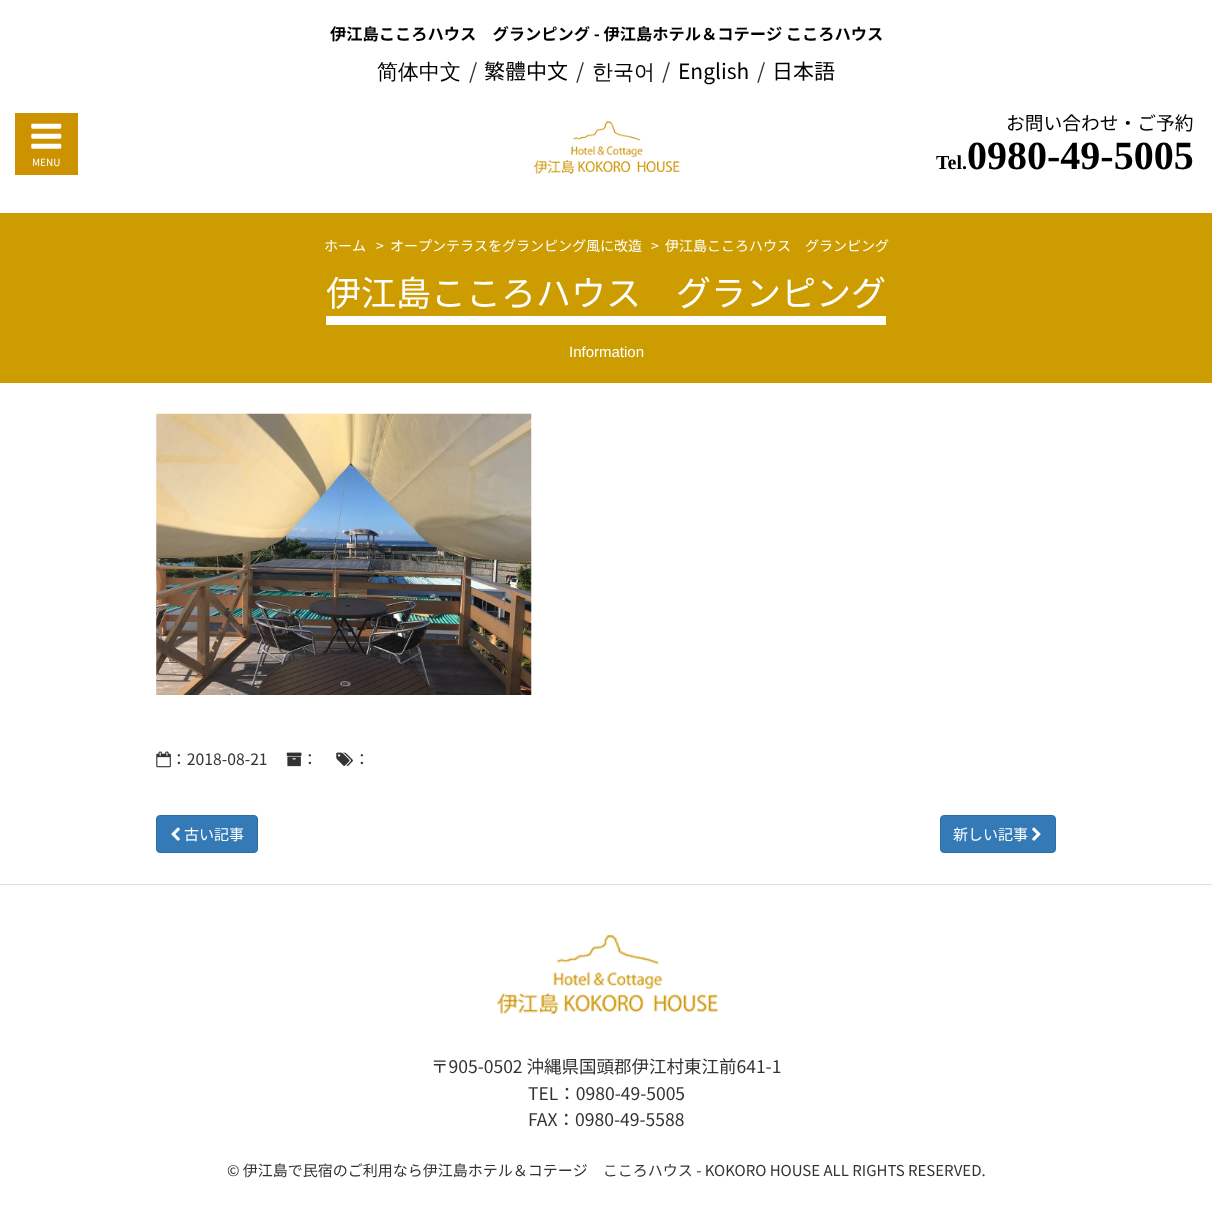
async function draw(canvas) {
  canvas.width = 1212;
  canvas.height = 1207;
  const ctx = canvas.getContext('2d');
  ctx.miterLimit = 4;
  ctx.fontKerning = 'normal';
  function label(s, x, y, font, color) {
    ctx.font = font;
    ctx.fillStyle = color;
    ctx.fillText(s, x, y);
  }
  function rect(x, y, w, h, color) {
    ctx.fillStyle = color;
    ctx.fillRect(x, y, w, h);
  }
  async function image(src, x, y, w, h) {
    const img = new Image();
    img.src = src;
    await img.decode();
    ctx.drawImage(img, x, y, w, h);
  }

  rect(0, 0, 1212, 1207, '#fff');
  label('伊江島こころハウス　グランピング - 伊江島ホテル＆コテージ こころハウス', 330, 40, 'bold 16.25px Noto Sans JP', '#000');
  label('简体中文', 377, 79, '500 21px WenQuanYi Zen Hei', '#000');
  label('/', 469, 79, '21px Noto Sans JP', '#333');
  label('繁體中文', 484, 79, '21px Noto Sans JP', '#000');
  label('/', 576, 79, '21px Noto Sans JP', '#333');
  label('한국어', 592, 79, '500 21px WenQuanYi Zen Hei', '#000');
  label('/', 662, 79, '21px Noto Sans JP', '#333');
  label('English', 678, 79, '21px Noto Sans JP', '#000');
  label('/', 757, 79, '21px Noto Sans JP', '#333');
  label('日本語', 772, 79, '21px Noto Sans JP', '#000');
  rect(15, 113, 63, 62, '#cc9200');
  await image('assets/img1.png', 31, 123, 31, 26);
  label('MENU', 32, 166, '10px Noto Sans JP', '#fff');
  await image('assets/img2.png', 534, 121, 146, 53);
  label('お問い合わせ・ご予約', 1006, 130, '18.75px Noto Sans JP', '#000');
  label('Tel.', 936, 169, 'bold 20px Liberation Serif', '#000');
  label('0980-49-5005', 967, 169, 'bold 40px Liberation Serif', '#000');
  rect(0, 213, 1212, 170, '#cd9c00');
  label('ホーム', 324, 251, '14px Noto Sans JP', '#fff');
  label('>', 376, 251, '14px Noto Sans JP', '#fff');
  label('オープンテラスをグランピング風に改造', 390, 251, '14px Noto Sans JP', '#fff');
  label('>', 651, 251, '14px Noto Sans JP', '#fff');
  label('伊江島こころハウス　グランピング', 665, 251, '14px Noto Sans JP', '#fff');
  label('伊江島こころハウス　グランピング', 326, 306, '35px Noto Sans JP', '#fff');
  rect(326, 316, 560, 9, '#fff');
  label('Information', 569, 357, '15px Liberation Sans', '#fff');
  await image('assets/img3.png', 156, 413, 376, 282);
  await image('assets/img4.png', 156, 751, 15, 17);
  label('：2018-08-21', 171, 765, '15.75px Noto Sans JP', '#333');
  await image('assets/img5.png', 286, 752, 16, 15);
  label('：', 302, 765, '15.75px Noto Sans JP', '#333');
  await image('assets/img6.png', 336, 752, 17, 14);
  label('：', 354, 765, '15.75px Noto Sans JP', '#333');
  ctx.fillStyle = '#337ab7';
  ctx.beginPath();
  ctx.roundRect(156.5, 815.5, 101, 37, 3.5);
  ctx.fill();
  ctx.strokeStyle = '#2e6da4';
  ctx.stroke();
  await image('assets/img7.png', 171, 827, 9, 14);
  label('古い記事', 184, 840, '15px Noto Sans JP', '#fff');
  ctx.fillStyle = '#337ab7';
  ctx.beginPath();
  ctx.roundRect(940.5, 815.5, 115, 37, 3.5);
  ctx.fill();
  ctx.stroke();
  label('新しい記事', 953, 840, '15px Noto Sans JP', '#fff');
  await image('assets/img8.png', 1032, 827, 9, 14);
  rect(0, 884, 1212, 1, '#ddd');
  await image('assets/img9.png', 497, 934, 221, 80);
  label('〒905-0502 沖縄県国頭郡伊江村東江前641-1', 431, 1073, '17.5px Noto Sans JP', '#333');
  label('TEL：0980-49-5005', 528, 1100, '17.5px Noto Sans JP', '#333');
  label('FAX：0980-49-5588', 528, 1126, '17.5px Noto Sans JP', '#333');
  label('© 伊江島で民宿のご利用なら伊江島ホテル＆コテージ　こころハウス - KOKORO HOUSE ALL RIGHTS RESERVED.', 227, 1176, '15px Noto Sans JP', '#333');
}

draw(document.querySelector('canvas'));
